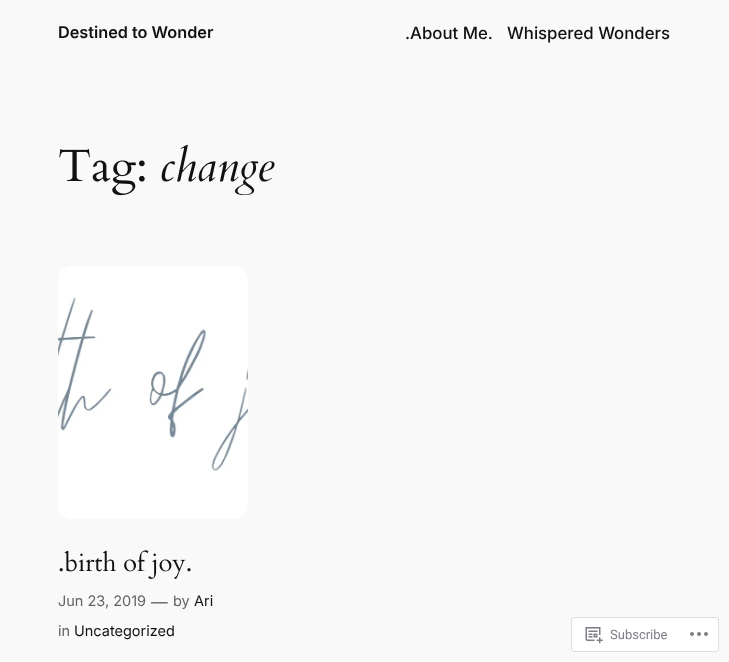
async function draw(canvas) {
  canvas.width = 729;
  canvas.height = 662;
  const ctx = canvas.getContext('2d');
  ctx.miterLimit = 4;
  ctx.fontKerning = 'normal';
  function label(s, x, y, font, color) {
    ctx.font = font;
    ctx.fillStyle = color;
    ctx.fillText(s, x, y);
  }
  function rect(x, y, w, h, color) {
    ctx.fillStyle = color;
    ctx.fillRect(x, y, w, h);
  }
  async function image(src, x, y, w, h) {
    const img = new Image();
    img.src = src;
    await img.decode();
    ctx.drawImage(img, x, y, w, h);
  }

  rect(0, 0, 729, 662, '#f9f9f9');
  label('Destined to Wonder', 58, 38, '600 16.25px Inter', '#111');
  label('.About Me.', 405, 39, '500 16.75px Inter', '#111');
  label('Whispered Wonders', 507, 39, '500 16.75px Inter', '#111');
  await image('assets/img1.png', 59, 149, 86, 47);
  label('change', 160, 181, 'italic 45px Cardo', '#111');
  await image('assets/img2.png', 58, 266, 190, 253);
  await image('assets/img3.png', 59, 550, 132, 29);
  label('Jun 23, 2019', 58, 606, '14.5px Inter', '#636363');
  label('—', 151, 608, '16.75px Inter', '#636363');
  label('by', 173, 606, '14.5px Inter', '#636363');
  label('Ari', 194, 606, '14.5px Inter', '#111');
  label('in', 58, 636, '14.5px Inter', '#636363');
  label('Uncategorized', 74, 636, '14.5px Inter', '#111');
  ctx.fillStyle = '#fff';
  ctx.beginPath();
  ctx.roundRect(571.5, 617.5, 147, 34, 2.5);
  ctx.fill();
  ctx.strokeStyle = '#dddddf';
  ctx.stroke();
  await image('assets/img4.png', 585, 627, 18, 17);
  label('Subscribe', 610, 639, '13px Roboto', '#7b7f84');
  await image('assets/img5.png', 690, 632, 18, 4);
}

draw(document.querySelector('canvas'));
